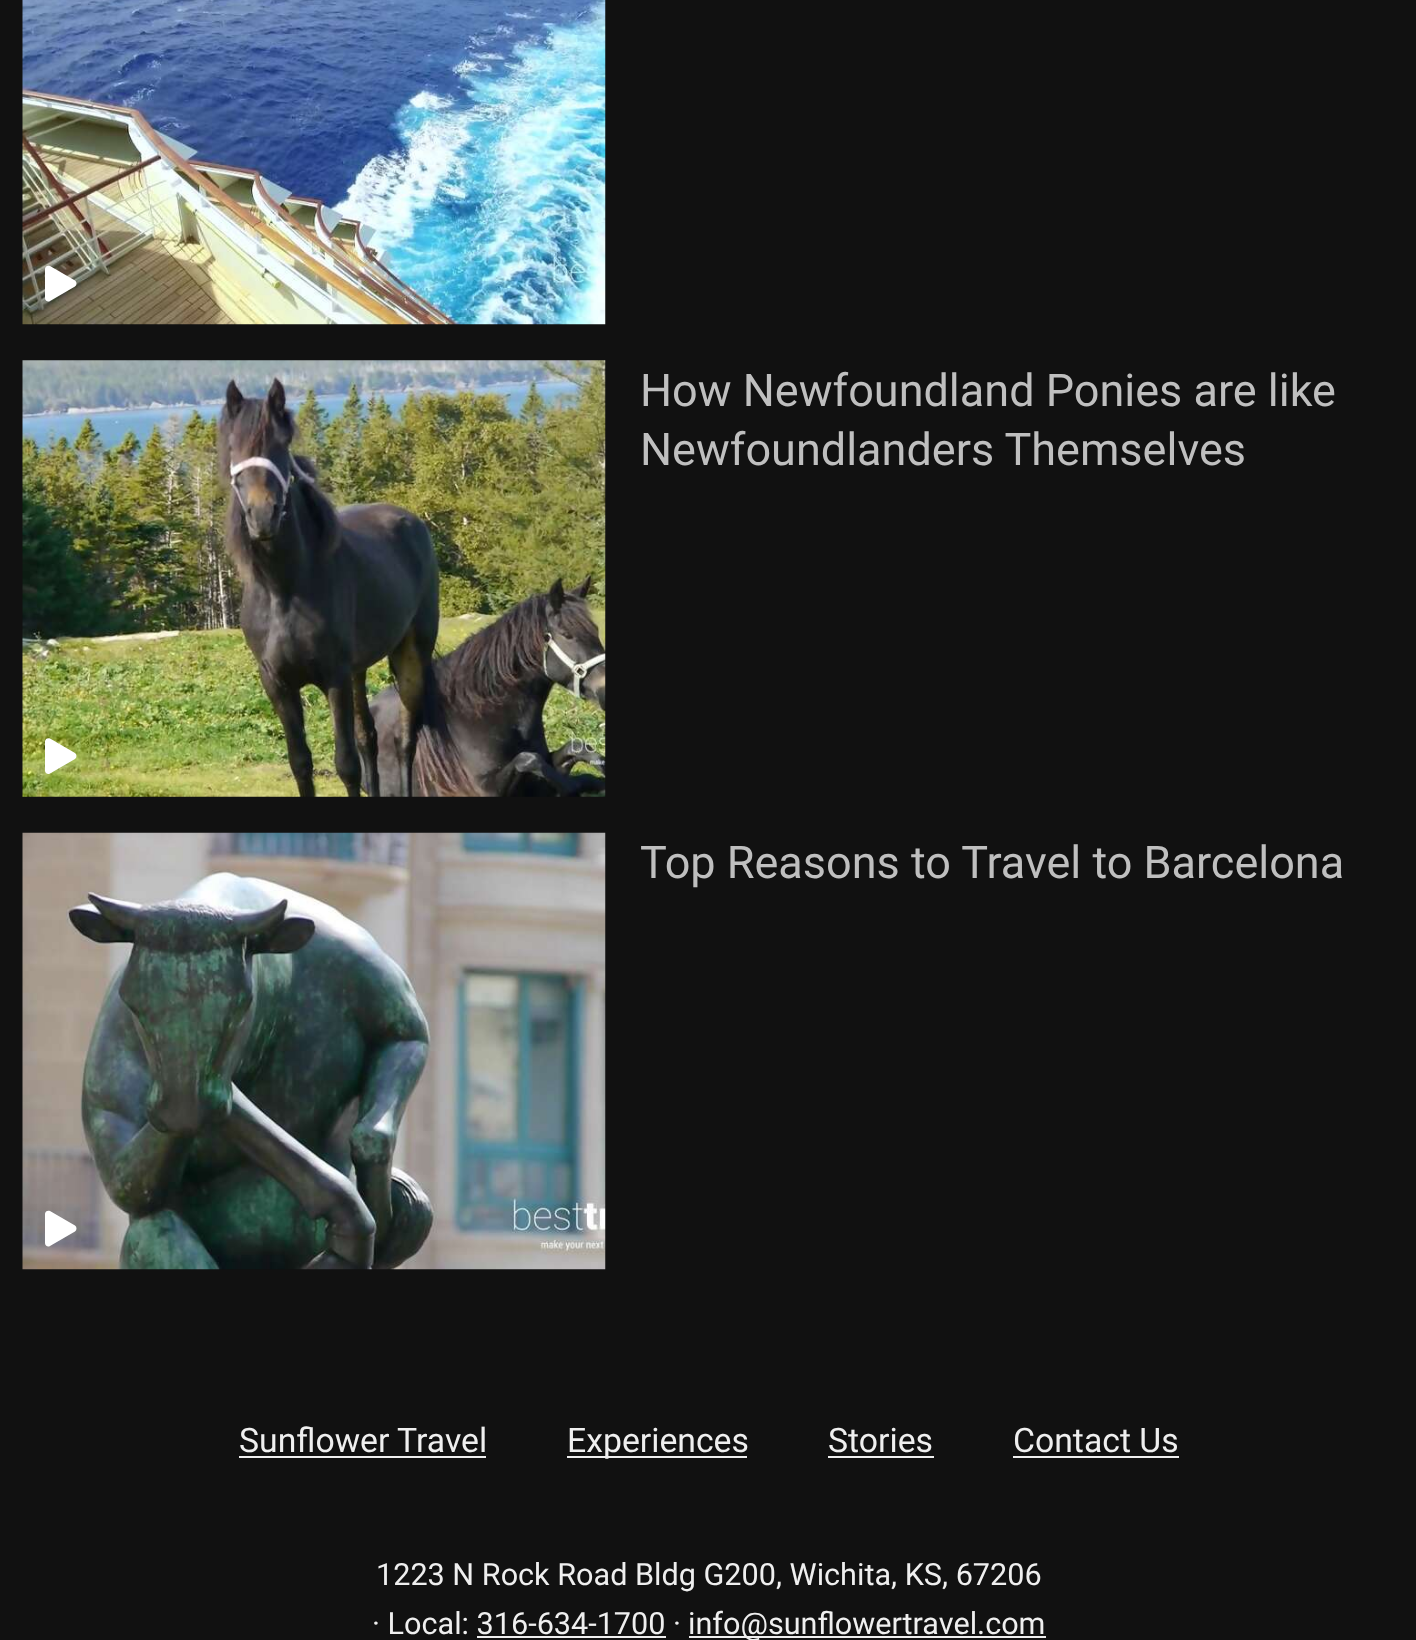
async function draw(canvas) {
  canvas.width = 1416;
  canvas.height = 1640;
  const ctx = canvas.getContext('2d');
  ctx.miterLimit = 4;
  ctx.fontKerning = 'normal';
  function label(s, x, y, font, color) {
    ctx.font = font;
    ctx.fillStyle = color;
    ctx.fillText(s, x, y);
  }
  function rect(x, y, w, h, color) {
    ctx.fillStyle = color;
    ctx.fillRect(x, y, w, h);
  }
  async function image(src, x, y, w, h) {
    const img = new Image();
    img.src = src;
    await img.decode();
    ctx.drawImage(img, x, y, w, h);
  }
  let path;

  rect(0, 0, 1416, 1640, '#111');
  await image('assets/img1.png', 22, 0, 584, 325);
  ctx.fillStyle = '#fff';
  path = new Path2D('M75 280.5L50 266C48 265 45 266 45 269V298C45 301 48 302.5 50 301L75 286.5C77 285 77 282 75 280.5Z');
  ctx.fill(path);
  await image('assets/img2.png', 22, 360, 584, 437);
  path = new Path2D('M75 753L50 738.5C48 737.5 45 738.5 45 741.5V770.5C45 773.5 48 775 50 773.5L75 759C77 757.5 77 754.5 75 753Z');
  ctx.fill(path);
  label('How Newfoundland Ponies are like', 640, 406, '45px Roboto', '#bfbfbf');
  label('Newfoundlanders Themselves', 640, 465, '45px Roboto', '#bfbfbf');
  await image('assets/img3.png', 22, 832, 584, 438);
  ctx.fillStyle = '#fff';
  path = new Path2D('M75 1225.5L50 1211C48 1210 45 1211 45 1214V1243C45 1246 48 1247.5 50 1246L75 1231.5C77 1230 77 1227 75 1225.5Z');
  ctx.fill(path);
  label('Top Reasons to Travel to Barcelona', 640, 878, '45px Roboto', '#bfbfbf');
  label('Sunflower Travel', 239, 1452, '33.75px Roboto', '#efefef');
  rect(239, 1456, 247, 2, '#efefef');
  rect(567, 1456, 180, 2, '#efefef');
  label('Experiences', 567, 1452, '33.75px Roboto', '#efefef');
  label('Stories', 828, 1452, '33.75px Roboto', '#efefef');
  rect(828, 1456, 106, 2, '#efefef');
  label('Contact Us', 1013, 1452, '33.75px Roboto', '#efefef');
  rect(1013, 1456, 166, 2, '#efefef');
  label('1223 N Rock Road Bldg G200, Wichita, KS, 67206', 376, 1585, '30.6px Roboto', '#efefef');
  label('· Local: 316-634-1700 ·', 372, 1634, '30.6px Roboto', '#efefef');
  rect(689, 1636, 357, 2, '#efefef');
  label('info@sunflowertravel.com', 688, 1634, '30.6px Roboto', '#efefef');
  rect(477, 1636, 189, 2, '#efefef');
}

draw(document.querySelector('canvas'));
